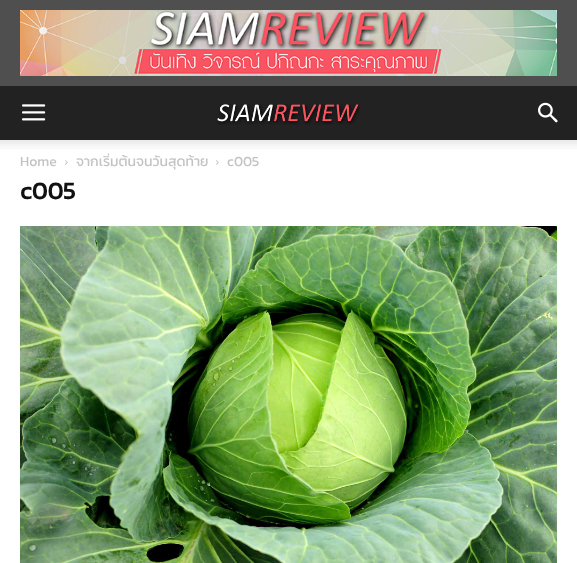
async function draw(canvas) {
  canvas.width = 577;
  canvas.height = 563;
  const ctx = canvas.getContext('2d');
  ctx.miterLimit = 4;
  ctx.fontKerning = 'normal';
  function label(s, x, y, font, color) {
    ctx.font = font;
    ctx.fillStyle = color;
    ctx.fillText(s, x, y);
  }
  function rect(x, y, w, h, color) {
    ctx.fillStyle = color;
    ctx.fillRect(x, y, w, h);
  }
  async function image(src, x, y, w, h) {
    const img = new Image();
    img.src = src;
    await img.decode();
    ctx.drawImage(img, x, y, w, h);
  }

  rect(0, 0, 577, 563, '#fff');
  rect(0, 0, 577, 86, '#4f4f4f');
  await image('assets/img1.png', 20, 10, 537, 66);
  rect(0, 86, 577, 54, '#222');
  await image('assets/img2.png', 22, 104, 24, 17);
  await image('assets/img3.png', 217, 104, 143, 21);
  await image('assets/img4.png', 538, 102, 20, 21);
  await image('assets/img5.png', 0, 140, 577, 9);
  label('Home', 20, 166, '14px Kanit', '#c3c3c3');
  await image('assets/img6.png', 65, 160, 3, 5);
  label('จากเริ่มต้นจนวันสุดท้าย', 76, 166, '14px Kanit', '#c3c3c3');
  await image('assets/img6.png', 216, 160, 3, 5);
  label('c005', 227, 166, '14px Kanit', '#c3c3c3');
  label('c005', 20, 199, 'bold 24px Kanit', '#111');
  await image('assets/img7.png', 20, 226, 537, 337);
}

draw(document.querySelector('canvas'));
